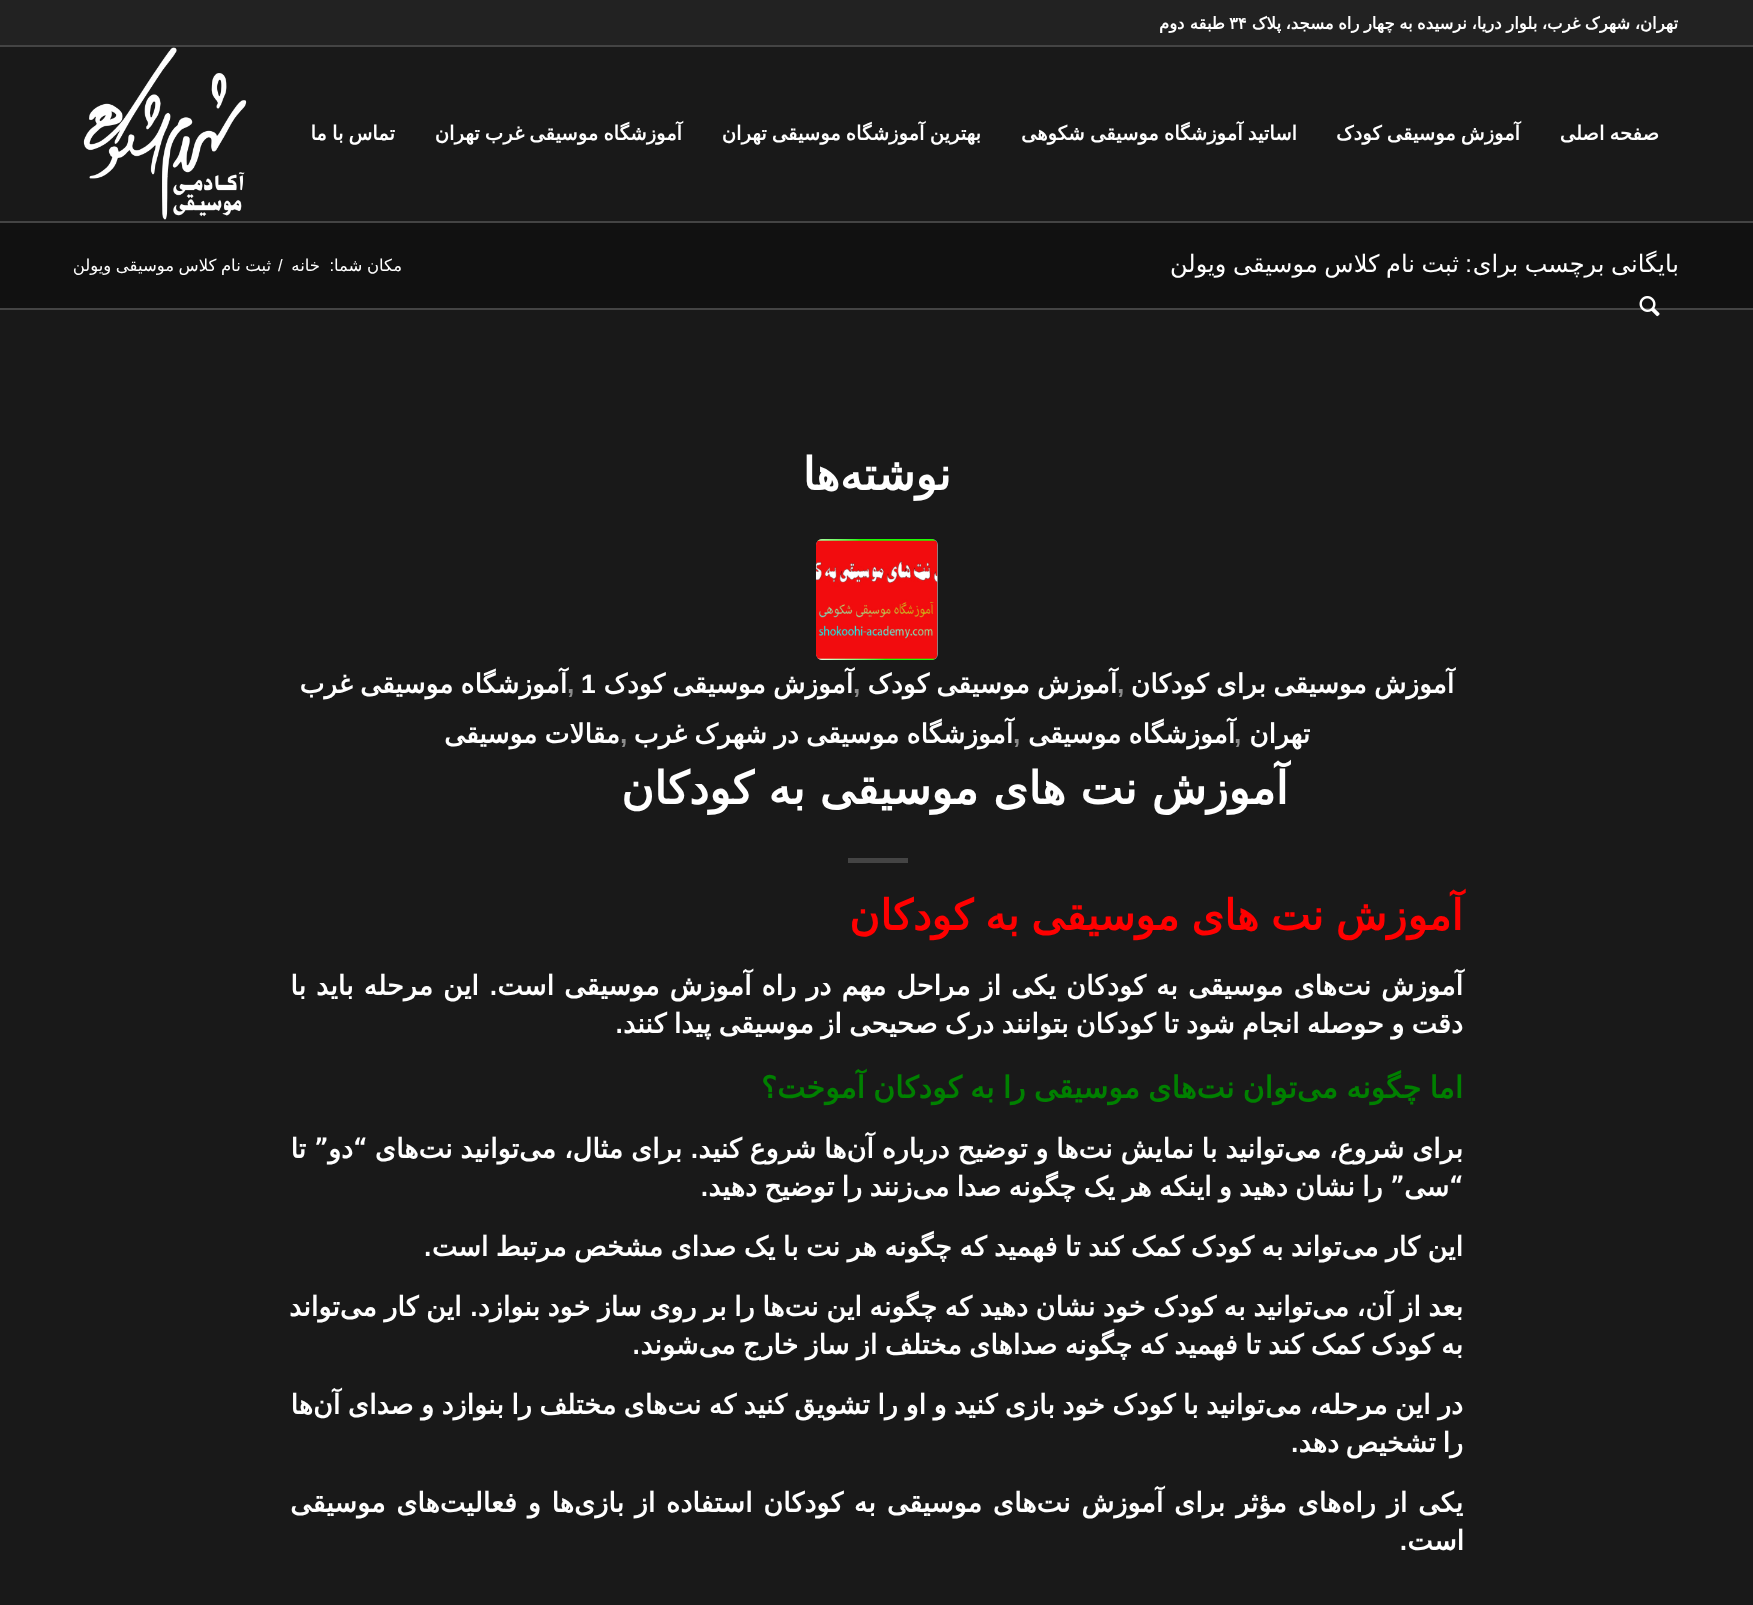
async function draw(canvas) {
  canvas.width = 1753;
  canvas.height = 1605;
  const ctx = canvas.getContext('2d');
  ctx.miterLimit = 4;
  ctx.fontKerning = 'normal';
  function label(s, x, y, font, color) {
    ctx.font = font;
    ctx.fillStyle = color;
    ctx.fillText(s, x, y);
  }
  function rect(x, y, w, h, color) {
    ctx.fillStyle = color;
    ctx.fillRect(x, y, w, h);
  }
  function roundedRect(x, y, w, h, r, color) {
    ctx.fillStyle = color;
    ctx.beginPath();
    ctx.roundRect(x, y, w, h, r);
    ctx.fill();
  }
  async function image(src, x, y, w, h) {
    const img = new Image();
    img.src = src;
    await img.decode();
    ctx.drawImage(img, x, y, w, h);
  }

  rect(0, 0, 1753, 1605, '#191919');
  rect(0, 0, 1753, 45, '#222');
  rect(0, 45, 1753, 2, '#444');
  ctx.wordSpacing = '-0.75px';
  ctx.direction = 'rtl';
  label('تهران، شهرک غرب، بلوار دریا، نرسیده به چهار راه مسجد، پلاک', 1678, 29, 'bold 16.5px DejaVu Sans', '#fff');
  ctx.wordSpacing = '0px';
  ctx.direction = 'ltr';
  label('۳۴', 1229, 29, 'bold 16.5px DejaVu Sans', '#fff');
  ctx.direction = 'rtl';
  label('طبقه دوم', 1225, 29, 'bold 16.5px DejaVu Sans', '#fff');
  rect(0, 221, 1753, 2, '#444');
  ctx.wordSpacing = '-1px';
  label('صفحه اصلی', 1659, 140, 'bold 19.5px DejaVu Sans', '#fff');
  label('آموزش موسیقی کودک', 1520, 140, 'bold 19.5px DejaVu Sans', '#fff');
  label('اساتید آموزشگاه موسیقی شکوهی', 1297, 140, 'bold 19.5px DejaVu Sans', '#fff');
  label('بهترین آموزشگاه موسیقی تهران', 981, 140, 'bold 19.5px DejaVu Sans', '#fff');
  label('آموزشگاه موسیقی غرب تهران', 682, 140, 'bold 19.5px DejaVu Sans', '#fff');
  label('تماس با ما', 395, 140, 'bold 19.5px DejaVu Sans', '#fff');
  rect(0, 223, 1753, 85, '#111');
  rect(0, 308, 1753, 2, '#444');
  await image('assets/img1.png', 1639, 296, 21, 21);
  await image('assets/img2.png', 83, 47, 164, 173);
  label('بایگانی برچسب برای', 1679, 272, '24px DejaVu Sans', '#fff');
  ctx.wordSpacing = '0px';
  label(':', 1472, 272, '24px Liberation Sans', '#fff');
  ctx.wordSpacing = '-1px';
  label('ثبت نام کلاس موسیقی ویولن', 1459, 272, '24px DejaVu Sans', '#fff');
  ctx.wordSpacing = '-0.75px';
  label('مکان شما', 402, 271, '16.5px DejaVu Sans', '#fff');
  ctx.wordSpacing = '0px';
  label(':', 334, 271, '16.5px Liberation Sans', '#fff');
  label('خانه', 320, 271, '16.5px DejaVu Sans', '#fff');
  ctx.direction = 'ltr';
  label('/', 278, 271, '16.5px Liberation Sans', '#fff');
  ctx.wordSpacing = '-0.75px';
  ctx.direction = 'rtl';
  label('ثبت نام کلاس موسیقی ویولن', 271, 271, '16.5px DejaVu Sans', '#fff');
  ctx.wordSpacing = '0px';
  label('نوشته‌ها', 951, 490, 'bold 45px DejaVu Sans', '#fff');
  roundedRect(816, 539, 122, 121, 6, '#8c8c8c');
  await image('assets/img3.png', 816, 539, 122, 121);
  ctx.wordSpacing = '-1px';
  label('آموزش موسیقی برای کودکان', 1454, 693, 'bold 26.4px DejaVu Sans', '#fff');
  ctx.wordSpacing = '0px';
  ctx.direction = 'ltr';
  label(',', 1117, 693, 'bold 26.4px Liberation Sans', '#8c8c8c');
  ctx.wordSpacing = '-1px';
  ctx.direction = 'rtl';
  label('آموزش موسیقی کودک', 1117, 693, 'bold 26.4px DejaVu Sans', '#fff');
  ctx.wordSpacing = '0px';
  ctx.direction = 'ltr';
  label(',', 853, 693, 'bold 26.4px Liberation Sans', '#8c8c8c');
  ctx.wordSpacing = '-1px';
  ctx.direction = 'rtl';
  label('آموزش موسیقی کودک', 853, 693, 'bold 26.4px DejaVu Sans', '#fff');
  ctx.wordSpacing = '0px';
  ctx.direction = 'ltr';
  label('1', 581, 693, 'bold 26.4px Liberation Sans', '#fff');
  label(',', 567, 693, 'bold 26.4px Liberation Sans', '#8c8c8c');
  ctx.wordSpacing = '-1px';
  ctx.direction = 'rtl';
  label('آموزشگاه موسيقى غرب', 567, 693, 'bold 26.4px DejaVu Sans', '#fff');
  ctx.wordSpacing = '0px';
  label('تهران', 1310, 743, 'bold 26.4px DejaVu Sans', '#fff');
  ctx.direction = 'ltr';
  label(',', 1234, 743, 'bold 26.4px Liberation Sans', '#8c8c8c');
  ctx.wordSpacing = '-1px';
  ctx.direction = 'rtl';
  label('آموزشگاه موسیقی', 1235, 743, 'bold 26.4px DejaVu Sans', '#fff');
  ctx.wordSpacing = '0px';
  ctx.direction = 'ltr';
  label(',', 1013, 743, 'bold 26.4px Liberation Sans', '#8c8c8c');
  ctx.wordSpacing = '-1px';
  ctx.direction = 'rtl';
  label('آموزشگاه موسیقی در شهرک غرب', 1013, 743, 'bold 26.4px DejaVu Sans', '#fff');
  ctx.wordSpacing = '0px';
  ctx.direction = 'ltr';
  label(',', 620, 743, 'bold 26.4px Liberation Sans', '#8c8c8c');
  ctx.wordSpacing = '-1px';
  ctx.direction = 'rtl';
  label('مقالات موسیقی', 620, 743, 'bold 26.4px DejaVu Sans', '#fff');
  ctx.letterSpacing = '3px';
  ctx.wordSpacing = '-2.75px';
  label('آموزش نت های موسیقی به کودکان', 1288, 804, 'bold 45px DejaVu Sans', '#fff');
  rect(848, 858, 60, 5, '#444');
  ctx.letterSpacing = '0px';
  ctx.wordSpacing = '-1.5px';
  label('آموزش نت های موسیقی به کودکان', 1463, 930, 'bold 42px DejaVu Sans', '#f00');
  ctx.wordSpacing = '1.5px';
  label('آموزش نت‌های موسیقی به کودکان یکی از مراحل مهم در راه آموزش موسیقی است. این مرحله باید با', 1463, 995, 'bold 27px DejaVu Sans', '#fff');
  ctx.wordSpacing = '-1.2px';
  label('دقت و حوصله انجام شود تا کودکان بتوانند درک صحیحی از موسیقی پیدا کنند.', 1463, 1033, 'bold 27px DejaVu Sans', '#fff');
  ctx.wordSpacing = '-1.25px';
  label('اما چگونه می‌توان نت‌های موسیقی را به کودکان آموخت؟', 1463, 1098, 'bold 30px DejaVu Sans', '#008000');
  ctx.wordSpacing = '-0.75px';
  label('برای شروع، می‌توانید با نمایش نت‌ها و توضیح درباره آن‌ها شروع کنید. برای مثال، می‌توانید نت‌های “دو” تا', 1463, 1158, 'bold 27px DejaVu Sans', '#fff');
  ctx.wordSpacing = '-1.25px';
  label('“سی” را نشان دهید و اینکه هر یک چگونه صدا می‌زنند را توضیح دهید.', 1463, 1196, 'bold 27px DejaVu Sans', '#fff');
  ctx.wordSpacing = '-1.1px';
  label('این کار می‌تواند به کودک کمک کند تا فهمید که چگونه هر نت با یک صدای مشخص مرتبط است.', 1463, 1256, 'bold 27px DejaVu Sans', '#fff');
  ctx.wordSpacing = '-1px';
  label('بعد از آن، می‌توانید به کودک خود نشان دهید که چگونه این نت‌ها را بر روی ساز خود بنوازد. این کار می‌تواند', 1463, 1316, 'bold 27px DejaVu Sans', '#fff');
  ctx.wordSpacing = '-1.2px';
  label('به کودک کمک کند تا فهمید که چگونه صداهای مختلف از ساز خارج می‌شوند.', 1463, 1354, 'bold 27px DejaVu Sans', '#fff');
  ctx.wordSpacing = '-1.1px';
  label('در این مرحله، می‌توانید با کودک خود بازی کنید و او را تشویق کنید که نت‌های مختلف را بنوازد و صدای آن‌ها', 1463, 1414, 'bold 27px DejaVu Sans', '#fff');
  ctx.wordSpacing = '-2px';
  label('را تشخیص دهد.', 1463, 1452, 'bold 27px DejaVu Sans', '#fff');
  ctx.wordSpacing = '2.25px';
  label('یکی از راه‌های مؤثر برای آموزش نت‌های موسیقی به کودکان استفاده از بازی‌ها و فعالیت‌های موسیقی', 1463, 1512, 'bold 27px DejaVu Sans', '#fff');
  ctx.wordSpacing = '0px';
  label('است.', 1464, 1550, 'bold 27px DejaVu Sans', '#fff');
}

draw(document.querySelector('canvas'));
